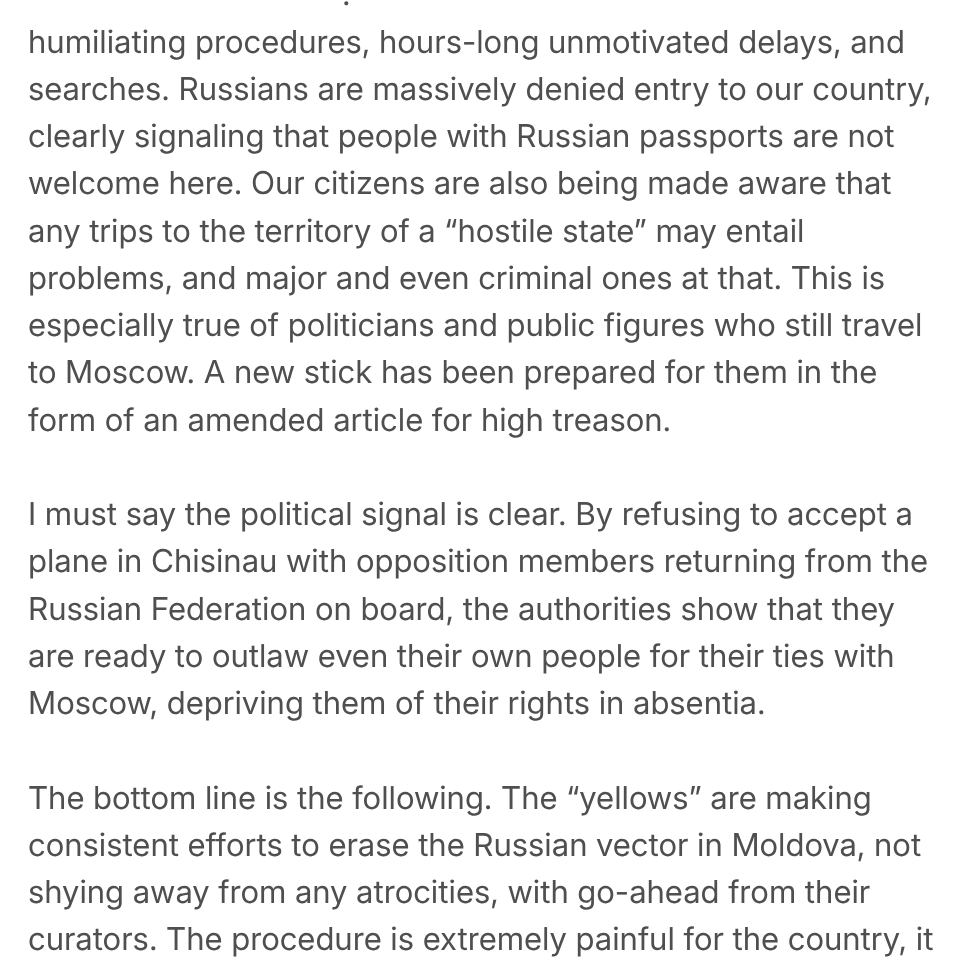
async function draw(canvas) {
  canvas.width = 961;
  canvas.height = 974;
  const ctx = canvas.getContext('2d');
  ctx.miterLimit = 4;
  ctx.fontKerning = 'normal';
  function label(s, x, y, font, color) {
    ctx.font = font;
    ctx.fillStyle = color;
    ctx.fillText(s, x, y);
  }
  function rect(x, y, w, h, color) {
    ctx.fillStyle = color;
    ctx.fillRect(x, y, w, h);
  }

  rect(0, 0, 961, 974, '#fff');
  label('.', 342, 5, '31.5px Inter', '#4f4f4f');
  label('humiliating procedures, hours-long unmotivated delays, and', 28, 53, '31.5px Inter', '#4f4f4f');
  label('searches. Russians are massively denied entry to our country,', 28, 100, '31.5px Inter', '#4f4f4f');
  label('clearly signaling that people with Russian passports are not', 28, 147, '31.5px Inter', '#4f4f4f');
  label('welcome here. Our citizens are also being made aware that', 28, 194, '31.5px Inter', '#4f4f4f');
  label('any trips to the territory of a “hostile state” may entail', 28, 242, '31.5px Inter', '#4f4f4f');
  label('problems, and major and even criminal ones at that. This is', 28, 289, '31.5px Inter', '#4f4f4f');
  label('especially true of politicians and public figures who still travel', 28, 336, '31.5px Inter', '#4f4f4f');
  label('to Moscow. A new stick has been prepared for them in the', 28, 383, '31.5px Inter', '#4f4f4f');
  label('form of an amended article for high treason.', 28, 431, '31.5px Inter', '#4f4f4f');
  label('I must say the political signal is clear. By refusing to accept a', 28, 525, '31.5px Inter', '#4f4f4f');
  label('plane in Chisinau with opposition members returning from the', 28, 572, '31.5px Inter', '#4f4f4f');
  label('Russian Federation on board, the authorities show that they', 28, 620, '31.5px Inter', '#4f4f4f');
  label('are ready to outlaw even their own people for their ties with', 28, 667, '31.5px Inter', '#4f4f4f');
  label('Moscow, depriving them of their rights in absentia.', 28, 714, '31.5px Inter', '#4f4f4f');
  label('The bottom line is the following. The “yellows” are making', 28, 809, '31.5px Inter', '#4f4f4f');
  label('consistent efforts to erase the Russian vector in Moldova, not', 28, 856, '31.5px Inter', '#4f4f4f');
  label('shying away from any atrocities, with go-ahead from their', 28, 903, '31.5px Inter', '#4f4f4f');
  label('curators. The procedure is extremely painful for the country, it', 28, 950, '31.5px Inter', '#4f4f4f');
}

draw(document.querySelector('canvas'));
